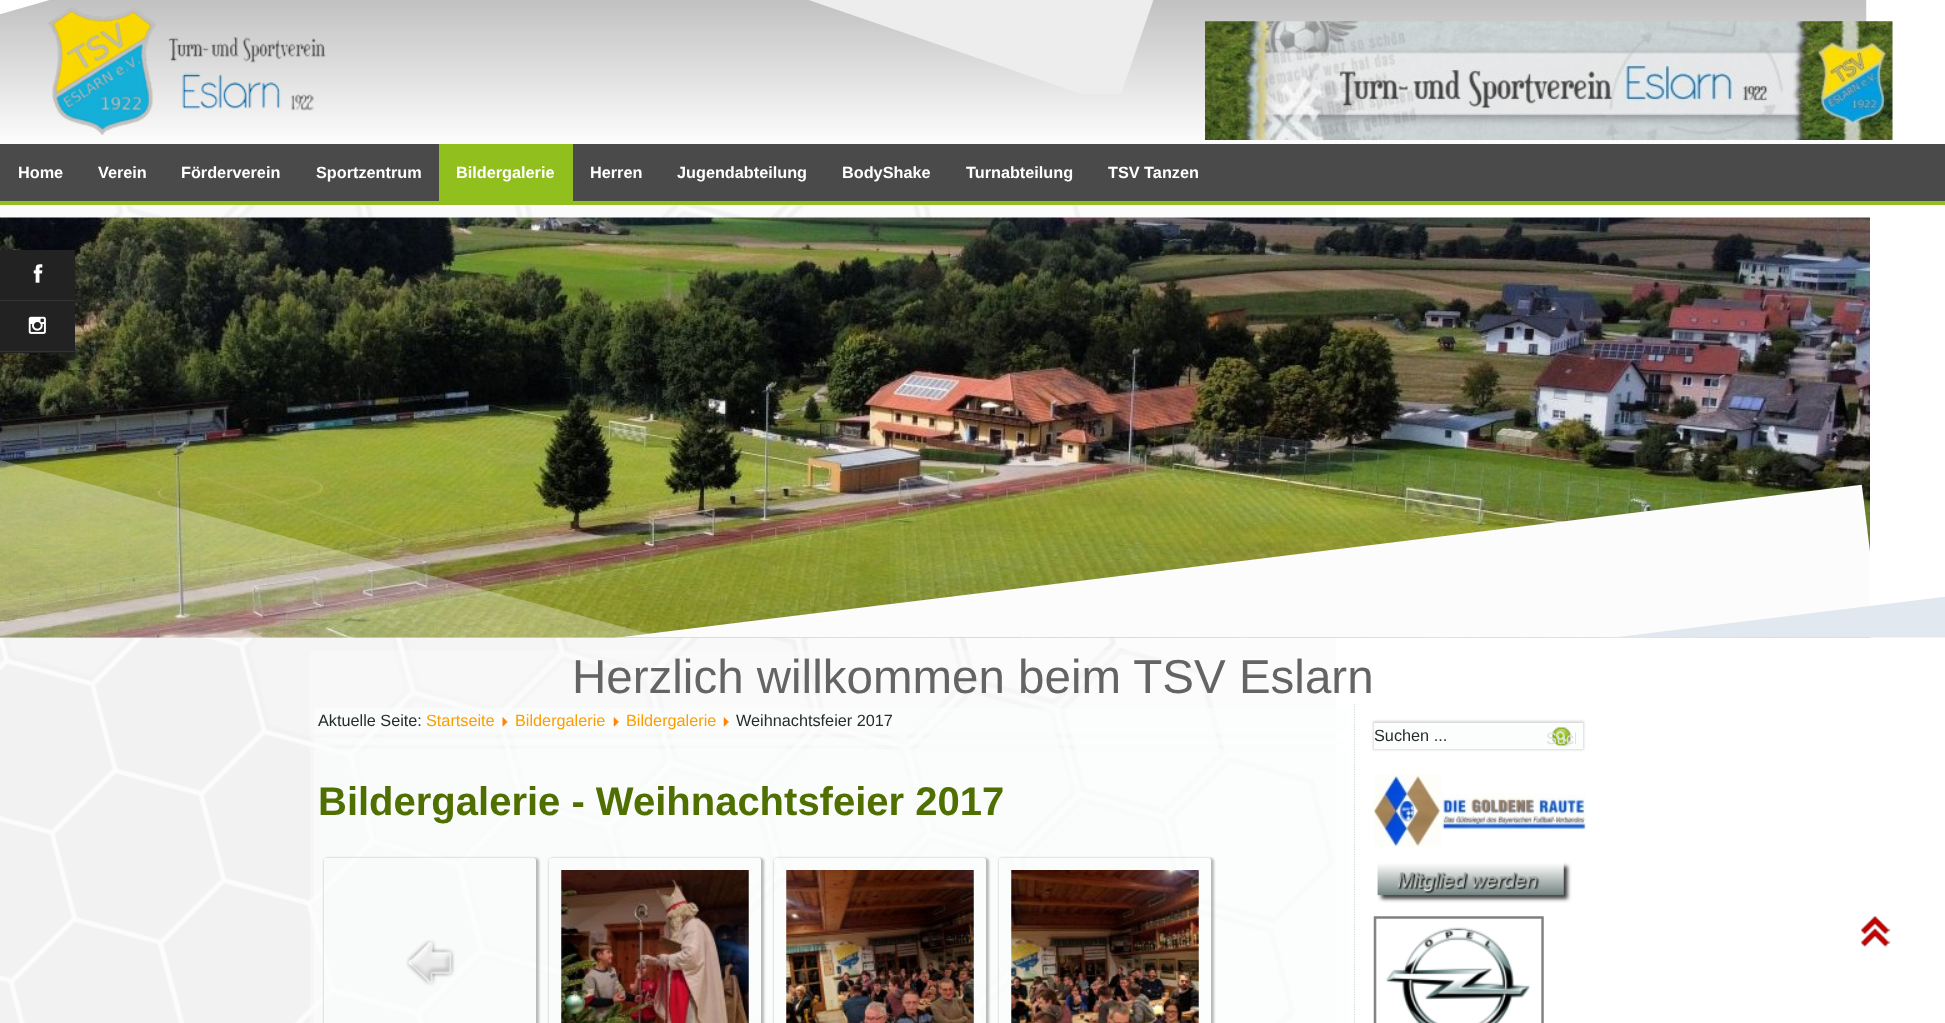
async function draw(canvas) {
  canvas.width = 1945;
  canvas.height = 1023;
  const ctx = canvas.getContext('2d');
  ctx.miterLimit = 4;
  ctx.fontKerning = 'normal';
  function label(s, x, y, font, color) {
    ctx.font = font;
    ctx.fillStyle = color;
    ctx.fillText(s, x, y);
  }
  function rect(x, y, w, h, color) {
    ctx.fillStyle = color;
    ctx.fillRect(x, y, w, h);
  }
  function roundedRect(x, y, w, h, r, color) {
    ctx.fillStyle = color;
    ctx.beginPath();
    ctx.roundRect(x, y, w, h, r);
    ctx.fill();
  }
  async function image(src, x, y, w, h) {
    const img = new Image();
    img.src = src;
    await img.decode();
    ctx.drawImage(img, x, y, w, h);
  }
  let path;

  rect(0, 0, 1945, 1023, '#fff');
  await image('assets/img1.png', 0, 205, 1336, 818);
  await image('assets/img2.png', 0, 0, 1867, 144);
  await image('assets/img3.png', 0, 0, 49, 15);
  await image('assets/img4.png', 809, 0, 345, 94);
  await image('assets/img5.png', 0, 217, 1870, 421);
  await image('assets/img7.png', 614, 484, 1256, 154);
  await image('assets/img6.png', 0, 460, 663, 178);
  await image('assets/img8.png', 1611, 596, 334, 42);
  await image('assets/img9.png', 48, 7, 278, 128);
  await image('assets/img10.png', 1205, 21, 688, 119);
  rect(0, 144, 1945, 57, '#4a4a4a');
  rect(0, 201, 1945, 4, '#91bf1d');
  label('Home', 18, 178, 'bold 16.25px Liberation Sans', '#fff');
  label('Verein', 98, 178, 'bold 16.25px Liberation Sans', '#fff');
  label('Förderverein', 181, 178, 'bold 16.25px Liberation Sans', '#fff');
  label('Sportzentrum', 316, 178, 'bold 16.25px Liberation Sans', '#fff');
  rect(439, 144, 134, 57, '#91bf1d');
  label('Bildergalerie', 456, 178, 'bold 16.25px Liberation Sans', '#fff');
  label('Herren', 590, 178, 'bold 16.25px Liberation Sans', '#fff');
  label('Jugendabteilung', 677, 178, 'bold 16.25px Liberation Sans', '#fff');
  label('BodyShake', 842, 178, 'bold 16.25px Liberation Sans', '#fff');
  label('Turnabteilung', 966, 178, 'bold 16.25px Liberation Sans', '#fff');
  label('TSV Tanzen', 1108, 178, 'bold 16.25px Liberation Sans', '#fff');
  rect(0, 250, 75, 50, '#222');
  rect(0, 300, 75, 1, '#333');
  await image('assets/img11.png', 33, 264, 10, 19);
  rect(0, 301, 75, 52, '#222');
  rect(0, 351, 75, 1, '#333');
  await image('assets/img12.png', 28, 316, 18, 18);
  rect(310, 650, 1025, 373, '#fcfdfd66');
  label('Herzlich willkommen beim TSV Eslarn', 572, 693, '47.5px Liberation Sans', '#646464');
  roundedRect(314, 708, 1036, 26, 2.5, '#fcfdfd99');
  label('Aktuelle Seite:', 318, 726, '16.25px Liberation Sans', '#252c2c');
  label('Startseite', 426, 726, '16.25px Liberation Sans', '#fa9e00');
  await image('assets/img13.png', 502, 717, 6, 10);
  label('Bildergalerie', 515, 726, '16.25px Liberation Sans', '#fa9e00');
  await image('assets/img14.png', 613, 717, 6, 10);
  label('Bildergalerie', 626, 726, '16.25px Liberation Sans', '#fa9e00');
  await image('assets/img15.png', 723, 717, 6, 10);
  label('Weihnachtsfeier 2017', 736, 726, '16.25px Liberation Sans', '#252c2c');
  roundedRect(314, 738, 1036, 7, 2.5, '#fcfdfd99');
  roundedRect(314, 749, 1036, 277, 2.5, '#fcfdfd99');
  label('Bildergalerie - Weihnachtsfeier 2017', 318, 815, 'bold 40px Liberation Sans', '#506f01');
  ctx.save();
  path = new Path2D('M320 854H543V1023H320ZM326.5 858H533.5C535 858 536 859 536 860.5V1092.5C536 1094 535 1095 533.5 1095H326.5C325 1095 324 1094 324 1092.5V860.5C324 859 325 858 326.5 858Z');
  ctx.clip(path, 'evenodd');
  ctx.fillStyle = '#78787880';
  ctx.filter = 'blur(1px)';
  ctx.beginPath();
  ctx.roundRect(324, 858, 215, 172, 4);
  ctx.fill();
  ctx.filter = 'none';
  ctx.restore();
  await image('assets/img16.png', 406, 940, 49, 46);
  ctx.save();
  path = new Path2D('M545 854H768V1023H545ZM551.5 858H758.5C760 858 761 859 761 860.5V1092.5C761 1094 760 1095 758.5 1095H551.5C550 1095 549 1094 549 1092.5V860.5C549 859 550 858 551.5 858Z');
  ctx.clip(path, 'evenodd');
  ctx.fillStyle = '#78787880';
  ctx.filter = 'blur(1px)';
  ctx.beginPath();
  ctx.roundRect(549, 858, 215, 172, 4);
  ctx.fill();
  ctx.filter = 'none';
  ctx.restore();
  await image('assets/img17.png', 561, 870, 188, 153);
  ctx.save();
  path = new Path2D('M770 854H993V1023H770ZM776.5 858H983.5C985 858 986 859 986 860.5V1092.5C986 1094 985 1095 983.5 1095H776.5C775 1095 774 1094 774 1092.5V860.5C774 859 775 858 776.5 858Z');
  ctx.clip(path, 'evenodd');
  ctx.fillStyle = '#78787880';
  ctx.filter = 'blur(1px)';
  ctx.beginPath();
  ctx.roundRect(774, 858, 215, 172, 4);
  ctx.fill();
  ctx.filter = 'none';
  ctx.restore();
  await image('assets/img18.png', 786, 870, 188, 153);
  ctx.save();
  path = new Path2D('M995 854H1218V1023H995ZM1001.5 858H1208.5C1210 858 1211 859 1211 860.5V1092.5C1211 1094 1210 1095 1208.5 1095H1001.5C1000 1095 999 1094 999 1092.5V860.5C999 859 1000 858 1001.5 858Z');
  ctx.clip(path, 'evenodd');
  ctx.fillStyle = '#78787880';
  ctx.filter = 'blur(1px)';
  ctx.beginPath();
  ctx.roundRect(999, 858, 215, 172, 4);
  ctx.fill();
  ctx.filter = 'none';
  ctx.restore();
  await image('assets/img19.png', 1011, 870, 188, 153);
  path = new Path2D('M1354.5 704V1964');
  ctx.strokeStyle = '#d3dada';
  ctx.lineWidth = 1.2;
  ctx.setLineDash([1.25, 1.25]);
  ctx.stroke(path);
  ctx.fillStyle = '#00000026';
  ctx.filter = 'blur(1px)';
  ctx.beginPath();
  ctx.rect(1373, 721, 211, 29);
  ctx.fill();
  ctx.filter = 'none';
  rect(1374, 723, 209, 26, '#fcfdfd');
  label('Suchen ...', 1374, 741, '16.25px Liberation Sans', '#252c2c');
  await image('assets/img20.png', 1552, 727, 20, 20);
  ctx.save();
  ctx.beginPath();
  ctx.rect(1546, 723, 30, 26);
  ctx.clip();
  label('Such', 1546, 744, '16.25px Liberation Sans', '#dbe1e1');
  ctx.restore();
  await image('assets/img21.png', 1373, 774, 213, 73);
  await image('assets/img22.png', 1377, 862, 195, 41);
  await image('assets/img23.png', 1373, 916, 171, 107);
  await image('assets/img24.png', 1861, 916, 30, 31);
}

draw(document.querySelector('canvas'));
